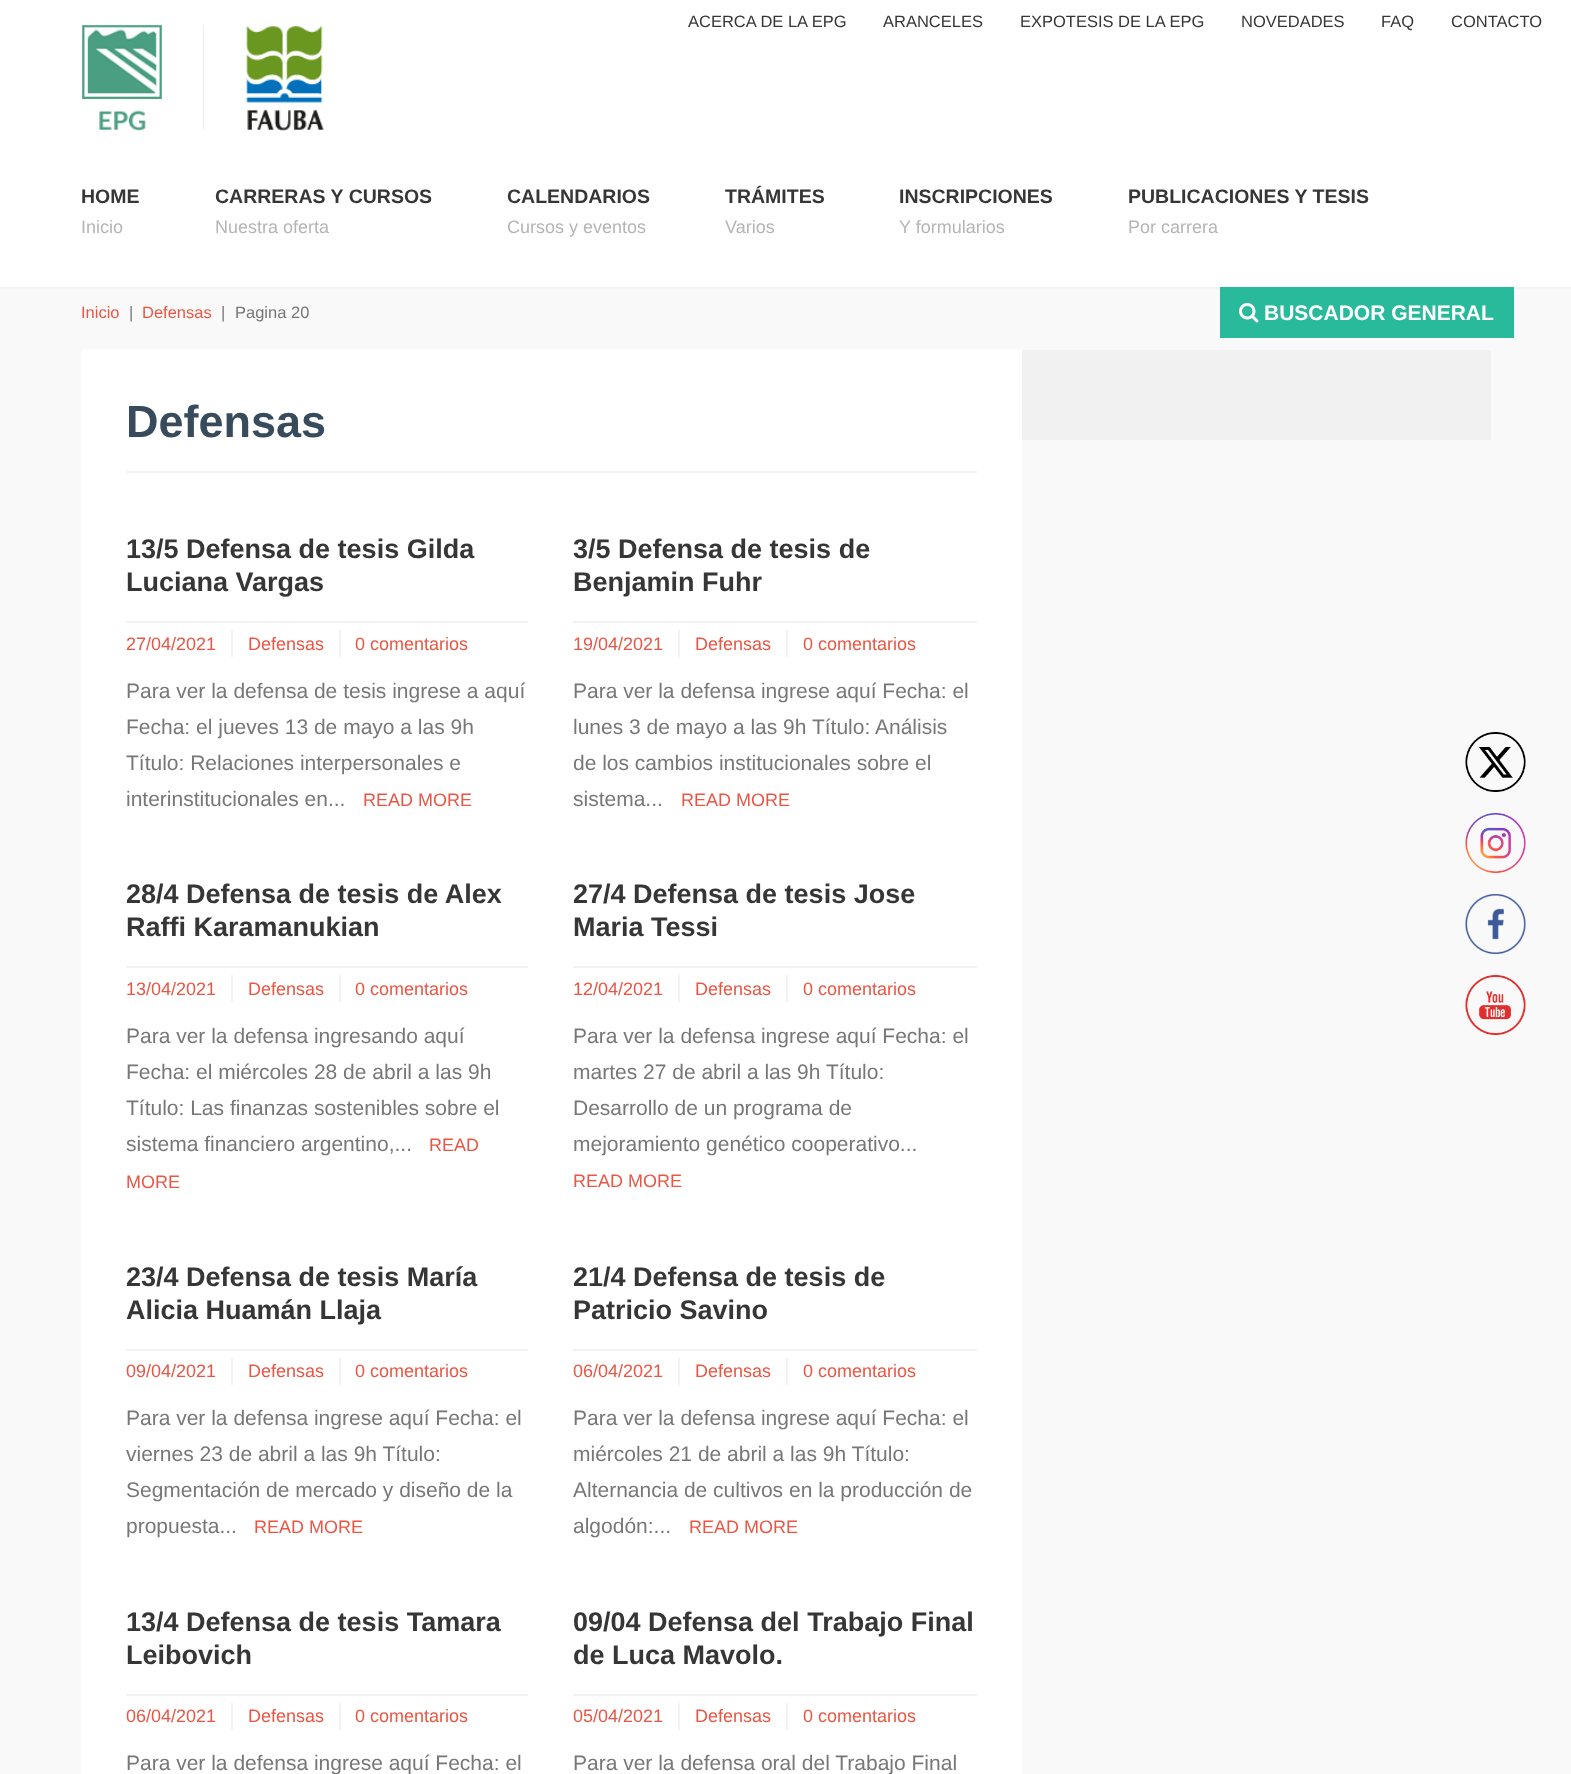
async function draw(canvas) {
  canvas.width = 1571;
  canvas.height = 1774;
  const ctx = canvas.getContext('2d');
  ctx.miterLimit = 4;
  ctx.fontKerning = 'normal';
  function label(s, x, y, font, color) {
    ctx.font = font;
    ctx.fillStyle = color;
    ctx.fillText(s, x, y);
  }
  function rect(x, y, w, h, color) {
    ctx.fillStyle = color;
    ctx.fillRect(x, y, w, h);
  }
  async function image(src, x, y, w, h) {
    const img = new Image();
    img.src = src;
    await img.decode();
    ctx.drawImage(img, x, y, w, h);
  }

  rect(0, 0, 1571, 1774, '#fff');
  label('ACERCA DE LA EPG', 688, 27, '16.5px Liberation Sans', '#363636');
  label('ARANCELES', 883, 27, '16.5px Liberation Sans', '#363636');
  label('EXPOTESIS DE LA EPG', 1020, 27, '16.5px Liberation Sans', '#363636');
  label('NOVEDADES', 1241, 27, '16.5px Liberation Sans', '#363636');
  label('FAQ', 1381, 27, '16.5px Liberation Sans', '#363636');
  label('CONTACTO', 1451, 27, '16.5px Liberation Sans', '#363636');
  await image('assets/img1.png', 82, 25, 242, 106);
  label('HOME', 81, 203, 'bold 19.5px Liberation Sans', '#363636');
  label('Inicio', 81, 233, '18px Liberation Sans', '#b5b5b5');
  label('CARRERAS Y CURSOS', 215, 203, 'bold 19.5px Liberation Sans', '#363636');
  label('Nuestra oferta', 215, 233, '18px Liberation Sans', '#b5b5b5');
  label('CALENDARIOS', 507, 203, 'bold 19.5px Liberation Sans', '#363636');
  label('Cursos y eventos', 507, 233, '18px Liberation Sans', '#b5b5b5');
  label('TRÁMITES', 725, 203, 'bold 19.5px Liberation Sans', '#363636');
  label('Varios', 725, 233, '18px Liberation Sans', '#b5b5b5');
  label('INSCRIPCIONES', 899, 203, 'bold 19.5px Liberation Sans', '#363636');
  label('Y formularios', 899, 233, '18px Liberation Sans', '#b5b5b5');
  label('PUBLICACIONES Y TESIS', 1128, 203, 'bold 19.5px Liberation Sans', '#363636');
  label('Por carrera', 1128, 233, '18px Liberation Sans', '#b5b5b5');
  rect(0, 289, 1571, 1485, '#f9f9f9');
  rect(0, 287, 1571, 2, '#f4f4f4');
  label('Inicio', 81, 318, '16.5px Liberation Sans', '#ea5644');
  label('|', 129, 318, '16.5px Liberation Sans', '#777');
  label('Defensas', 142, 318, '16.5px Liberation Sans', '#ea5644');
  label('|', 221, 318, '16.5px Liberation Sans', '#777');
  label('Pagina 20', 235, 318, '16.5px Liberation Sans', '#777');
  rect(1220, 287, 294, 51, '#29ba9c');
  await image('assets/img2.png', 1239, 303, 20, 20);
  label('BUSCADOR GENERAL', 1264, 320, 'bold 21px Liberation Sans', '#fff');
  rect(1022, 350, 469, 90, '#f1f1f1');
  rect(81, 350, 941, 1424, '#fff');
  rect(126, 471, 851, 2, '#f2f2f2');
  label('Defensas', 126, 437, 'bold 45px Liberation Sans', '#374b5d');
  rect(126, 621, 402, 2, '#f2f2f2');
  label('13/5 Defensa de tesis Gilda', 126, 558, 'bold 27px Liberation Sans', '#363636');
  label('Luciana Vargas', 126, 591, 'bold 27px Liberation Sans', '#363636');
  rect(231, 630, 2, 27, '#f2f2f2');
  label('27/04/2021', 126, 650, '18px Liberation Sans', '#ea5644');
  rect(339, 630, 2, 27, '#f2f2f2');
  label('Defensas', 248, 650, '18px Liberation Sans', '#ea5644');
  label('0 comentarios', 355, 650, '18px Liberation Sans', '#ea5644');
  label('Para ver la defensa de tesis ingrese a aquí', 126, 698, '21px Liberation Sans', '#777');
  label('Fecha: el jueves 13 de mayo a las 9h', 126, 734, '21px Liberation Sans', '#777');
  label('Título: Relaciones interpersonales e', 126, 770, '21px Liberation Sans', '#777');
  label('interinstitucionales en...', 126, 806, '21px Liberation Sans', '#777');
  label('READ MORE', 363, 806, '18px Liberation Sans', '#ea5644');
  rect(573, 621, 404, 2, '#f2f2f2');
  label('3/5 Defensa de tesis de', 573, 558, 'bold 27px Liberation Sans', '#363636');
  label('Benjamin Fuhr', 573, 591, 'bold 27px Liberation Sans', '#363636');
  rect(678, 630, 2, 27, '#f2f2f2');
  label('19/04/2021', 573, 650, '18px Liberation Sans', '#ea5644');
  rect(786, 630, 2, 27, '#f2f2f2');
  label('Defensas', 695, 650, '18px Liberation Sans', '#ea5644');
  label('0 comentarios', 803, 650, '18px Liberation Sans', '#ea5644');
  label('Para ver la defensa ingrese aquí Fecha: el', 573, 698, '21px Liberation Sans', '#777');
  label('lunes 3 de mayo a las 9h Título: Análisis', 573, 734, '21px Liberation Sans', '#777');
  label('de los cambios institucionales sobre el', 573, 770, '21px Liberation Sans', '#777');
  label('sistema...', 573, 806, '21px Liberation Sans', '#777');
  label('READ MORE', 681, 806, '18px Liberation Sans', '#ea5644');
  rect(126, 966, 402, 2, '#f2f2f2');
  label('28/4 Defensa de tesis de Alex', 126, 903, 'bold 27px Liberation Sans', '#363636');
  label('Raffi Karamanukian', 126, 936, 'bold 27px Liberation Sans', '#363636');
  rect(231, 975, 2, 27, '#f2f2f2');
  label('13/04/2021', 126, 995, '18px Liberation Sans', '#ea5644');
  rect(339, 975, 2, 27, '#f2f2f2');
  label('Defensas', 248, 995, '18px Liberation Sans', '#ea5644');
  label('0 comentarios', 355, 995, '18px Liberation Sans', '#ea5644');
  label('Para ver la defensa ingresando aquí', 126, 1043, '21px Liberation Sans', '#777');
  label('Fecha: el miércoles 28 de abril a las 9h', 126, 1079, '21px Liberation Sans', '#777');
  label('Título: Las finanzas sostenibles sobre el', 126, 1115, '21px Liberation Sans', '#777');
  label('sistema financiero argentino,...', 126, 1151, '21px Liberation Sans', '#777');
  label('READ', 429, 1151, '18px Liberation Sans', '#ea5644');
  label('MORE', 126, 1188, '18px Liberation Sans', '#ea5644');
  rect(573, 966, 404, 2, '#f2f2f2');
  label('27/4 Defensa de tesis Jose', 573, 903, 'bold 27px Liberation Sans', '#363636');
  label('Maria Tessi', 573, 936, 'bold 27px Liberation Sans', '#363636');
  rect(678, 975, 2, 27, '#f2f2f2');
  label('12/04/2021', 573, 995, '18px Liberation Sans', '#ea5644');
  rect(786, 975, 2, 27, '#f2f2f2');
  label('Defensas', 695, 995, '18px Liberation Sans', '#ea5644');
  label('0 comentarios', 803, 995, '18px Liberation Sans', '#ea5644');
  label('Para ver la defensa ingrese aquí Fecha: el', 573, 1043, '21px Liberation Sans', '#777');
  label('martes 27 de abril a las 9h Título:', 573, 1079, '21px Liberation Sans', '#777');
  label('Desarrollo de un programa de', 573, 1115, '21px Liberation Sans', '#777');
  label('mejoramiento genético cooperativo...', 573, 1151, '21px Liberation Sans', '#777');
  label('READ MORE', 573, 1187, '18px Liberation Sans', '#ea5644');
  rect(126, 1349, 402, 2, '#f2f2f2');
  label('23/4 Defensa de tesis María', 126, 1286, 'bold 27px Liberation Sans', '#363636');
  label('Alicia Huamán Llaja', 126, 1319, 'bold 27px Liberation Sans', '#363636');
  rect(231, 1358, 2, 27, '#f2f2f2');
  label('09/04/2021', 126, 1377, '18px Liberation Sans', '#ea5644');
  rect(339, 1358, 2, 27, '#f2f2f2');
  label('Defensas', 248, 1377, '18px Liberation Sans', '#ea5644');
  label('0 comentarios', 355, 1377, '18px Liberation Sans', '#ea5644');
  label('Para ver la defensa ingrese aquí Fecha: el', 126, 1425, '21px Liberation Sans', '#777');
  label('viernes 23 de abril a las 9h Título:', 126, 1461, '21px Liberation Sans', '#777');
  label('Segmentación de mercado y diseño de la', 126, 1497, '21px Liberation Sans', '#777');
  label('propuesta...', 126, 1533, '21px Liberation Sans', '#777');
  label('READ MORE', 254, 1533, '18px Liberation Sans', '#ea5644');
  rect(573, 1349, 404, 2, '#f2f2f2');
  label('21/4 Defensa de tesis de', 573, 1286, 'bold 27px Liberation Sans', '#363636');
  label('Patricio Savino', 573, 1319, 'bold 27px Liberation Sans', '#363636');
  rect(678, 1358, 2, 27, '#f2f2f2');
  label('06/04/2021', 573, 1377, '18px Liberation Sans', '#ea5644');
  rect(786, 1358, 2, 27, '#f2f2f2');
  label('Defensas', 695, 1377, '18px Liberation Sans', '#ea5644');
  label('0 comentarios', 803, 1377, '18px Liberation Sans', '#ea5644');
  label('Para ver la defensa ingrese aquí Fecha: el', 573, 1425, '21px Liberation Sans', '#777');
  label('miércoles 21 de abril a las 9h Título:', 573, 1461, '21px Liberation Sans', '#777');
  label('Alternancia de cultivos en la producción de', 573, 1497, '21px Liberation Sans', '#777');
  label('algodón:...', 573, 1533, '21px Liberation Sans', '#777');
  label('READ MORE', 689, 1533, '18px Liberation Sans', '#ea5644');
  rect(126, 1694, 402, 2, '#f2f2f2');
  label('13/4 Defensa de tesis Tamara', 126, 1631, 'bold 27px Liberation Sans', '#363636');
  label('Leibovich', 126, 1664, 'bold 27px Liberation Sans', '#363636');
  rect(231, 1703, 2, 27, '#f2f2f2');
  label('06/04/2021', 126, 1722, '18px Liberation Sans', '#ea5644');
  rect(339, 1703, 2, 27, '#f2f2f2');
  label('Defensas', 248, 1722, '18px Liberation Sans', '#ea5644');
  label('0 comentarios', 355, 1722, '18px Liberation Sans', '#ea5644');
  label('Para ver la defensa ingrese aquí Fecha: el', 126, 1770, '21px Liberation Sans', '#777');
  rect(573, 1694, 404, 2, '#f2f2f2');
  label('09/04 Defensa del Trabajo Final', 573, 1631, 'bold 27px Liberation Sans', '#363636');
  label('de Luca Mavolo.', 573, 1664, 'bold 27px Liberation Sans', '#363636');
  rect(678, 1703, 2, 27, '#f2f2f2');
  label('05/04/2021', 573, 1722, '18px Liberation Sans', '#ea5644');
  rect(786, 1703, 2, 27, '#f2f2f2');
  label('Defensas', 695, 1722, '18px Liberation Sans', '#ea5644');
  label('0 comentarios', 803, 1722, '18px Liberation Sans', '#ea5644');
  label('Para ver la defensa oral del Trabajo Final', 573, 1770, '21px Liberation Sans', '#777');
  await image('assets/img3.png', 1465, 732, 61, 60);
  await image('assets/img4.png', 1465, 813, 61, 60);
  await image('assets/img5.png', 1465, 894, 61, 60);
  await image('assets/img6.png', 1465, 975, 61, 60);
}

draw(document.querySelector('canvas'));
